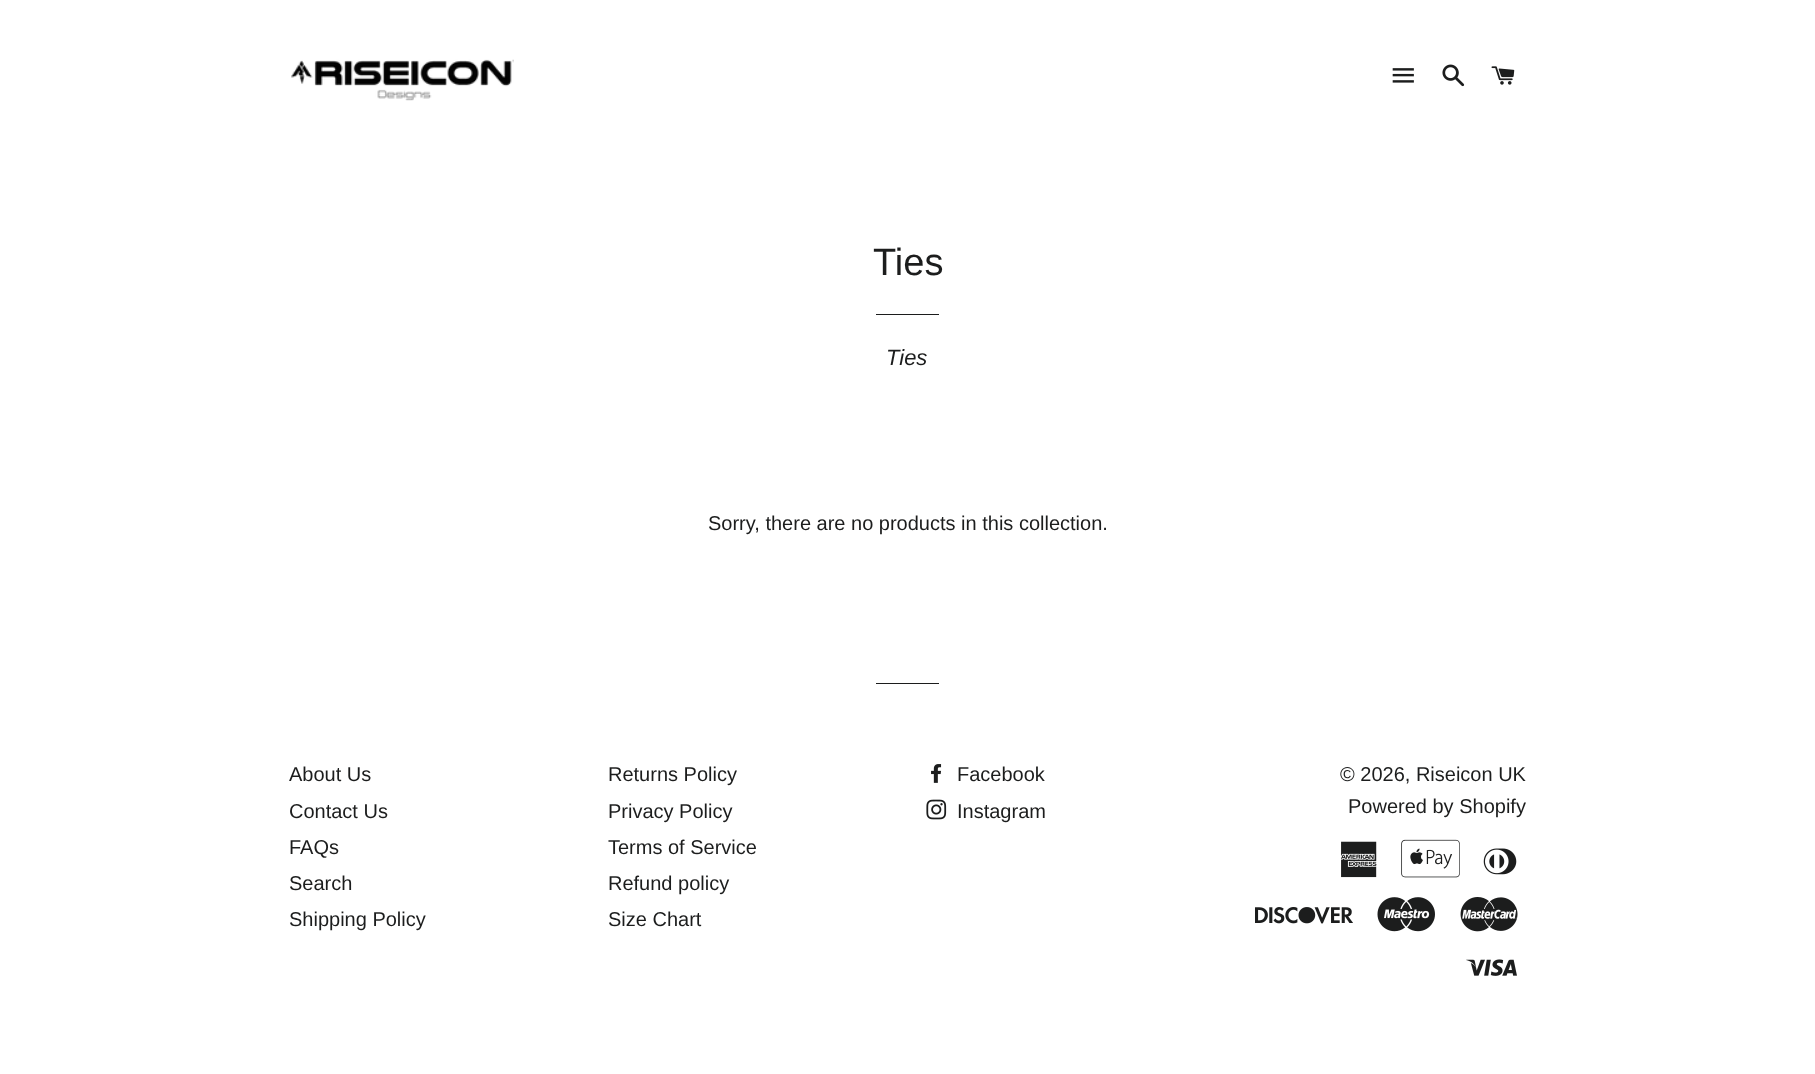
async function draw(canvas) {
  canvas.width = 1815;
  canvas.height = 1074;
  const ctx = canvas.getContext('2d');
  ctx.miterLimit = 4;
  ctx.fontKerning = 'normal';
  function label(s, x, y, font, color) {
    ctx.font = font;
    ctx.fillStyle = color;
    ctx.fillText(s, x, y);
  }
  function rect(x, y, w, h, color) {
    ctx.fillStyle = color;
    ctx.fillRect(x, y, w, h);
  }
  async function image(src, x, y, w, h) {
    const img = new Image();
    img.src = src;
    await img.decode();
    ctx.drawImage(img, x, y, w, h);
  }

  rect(0, 0, 1815, 1074, '#fff');
  await image('assets/img1.png', 291, 59, 223, 42);
  await image('assets/img2.png', 1392, 68, 22, 15);
  await image('assets/img3.png', 1442, 64, 23, 23);
  await image('assets/img4.png', 1491, 66, 24, 19);
  label('Ties', 873, 275, '38px Liberation Sans', '#1c1d1d');
  rect(876, 314, 63, 1, '#1c1d1d');
  label('Ties', 886, 365, 'italic 22px Liberation Sans', '#1c1d1d');
  label('Sorry, there are no products in this collection.', 708, 530, '20px Liberation Sans', '#1c1d1d');
  rect(876, 683, 63, 1, '#1c1d1d');
  label('About Us', 289, 781, '20px Liberation Sans', '#1c1d1d');
  label('Contact Us', 289, 818, '20px Liberation Sans', '#1c1d1d');
  label('FAQs', 289, 854, '20px Liberation Sans', '#1c1d1d');
  label('Search', 289, 890, '20px Liberation Sans', '#1c1d1d');
  label('Shipping Policy', 289, 926, '20px Liberation Sans', '#1c1d1d');
  label('Returns Policy', 608, 781, '20px Liberation Sans', '#1c1d1d');
  label('Privacy Policy', 608, 818, '20px Liberation Sans', '#1c1d1d');
  label('Terms of Service', 608, 854, '20px Liberation Sans', '#1c1d1d');
  label('Refund policy', 608, 890, '20px Liberation Sans', '#1c1d1d');
  label('Size Chart', 608, 926, '20px Liberation Sans', '#1c1d1d');
  await image('assets/img5.png', 931, 764, 11, 19);
  label('Facebook', 957, 781, '20px Liberation Sans', '#1c1d1d');
  await image('assets/img6.png', 926, 799, 21, 21);
  label('Instagram', 957, 818, '20px Liberation Sans', '#1c1d1d');
  label('© 2026, Riseicon UK', 1340, 781, '20px Liberation Sans', '#1c1d1d');
  label('Powered by Shopify', 1348, 813, '20px Liberation Sans', '#1c1d1d');
  await image('assets/img7.png', 1341, 841, 36, 37);
  await image('assets/img8.png', 1401, 839, 59, 39);
  await image('assets/img9.png', 1483, 848, 34, 27);
  await image('assets/img10.png', 1255, 907, 98, 17);
  await image('assets/img11.png', 1377, 897, 58, 35);
  await image('assets/img12.png', 1460, 897, 58, 35);
  await image('assets/img13.png', 1466, 959, 51, 17);
}

draw(document.querySelector('canvas'));
